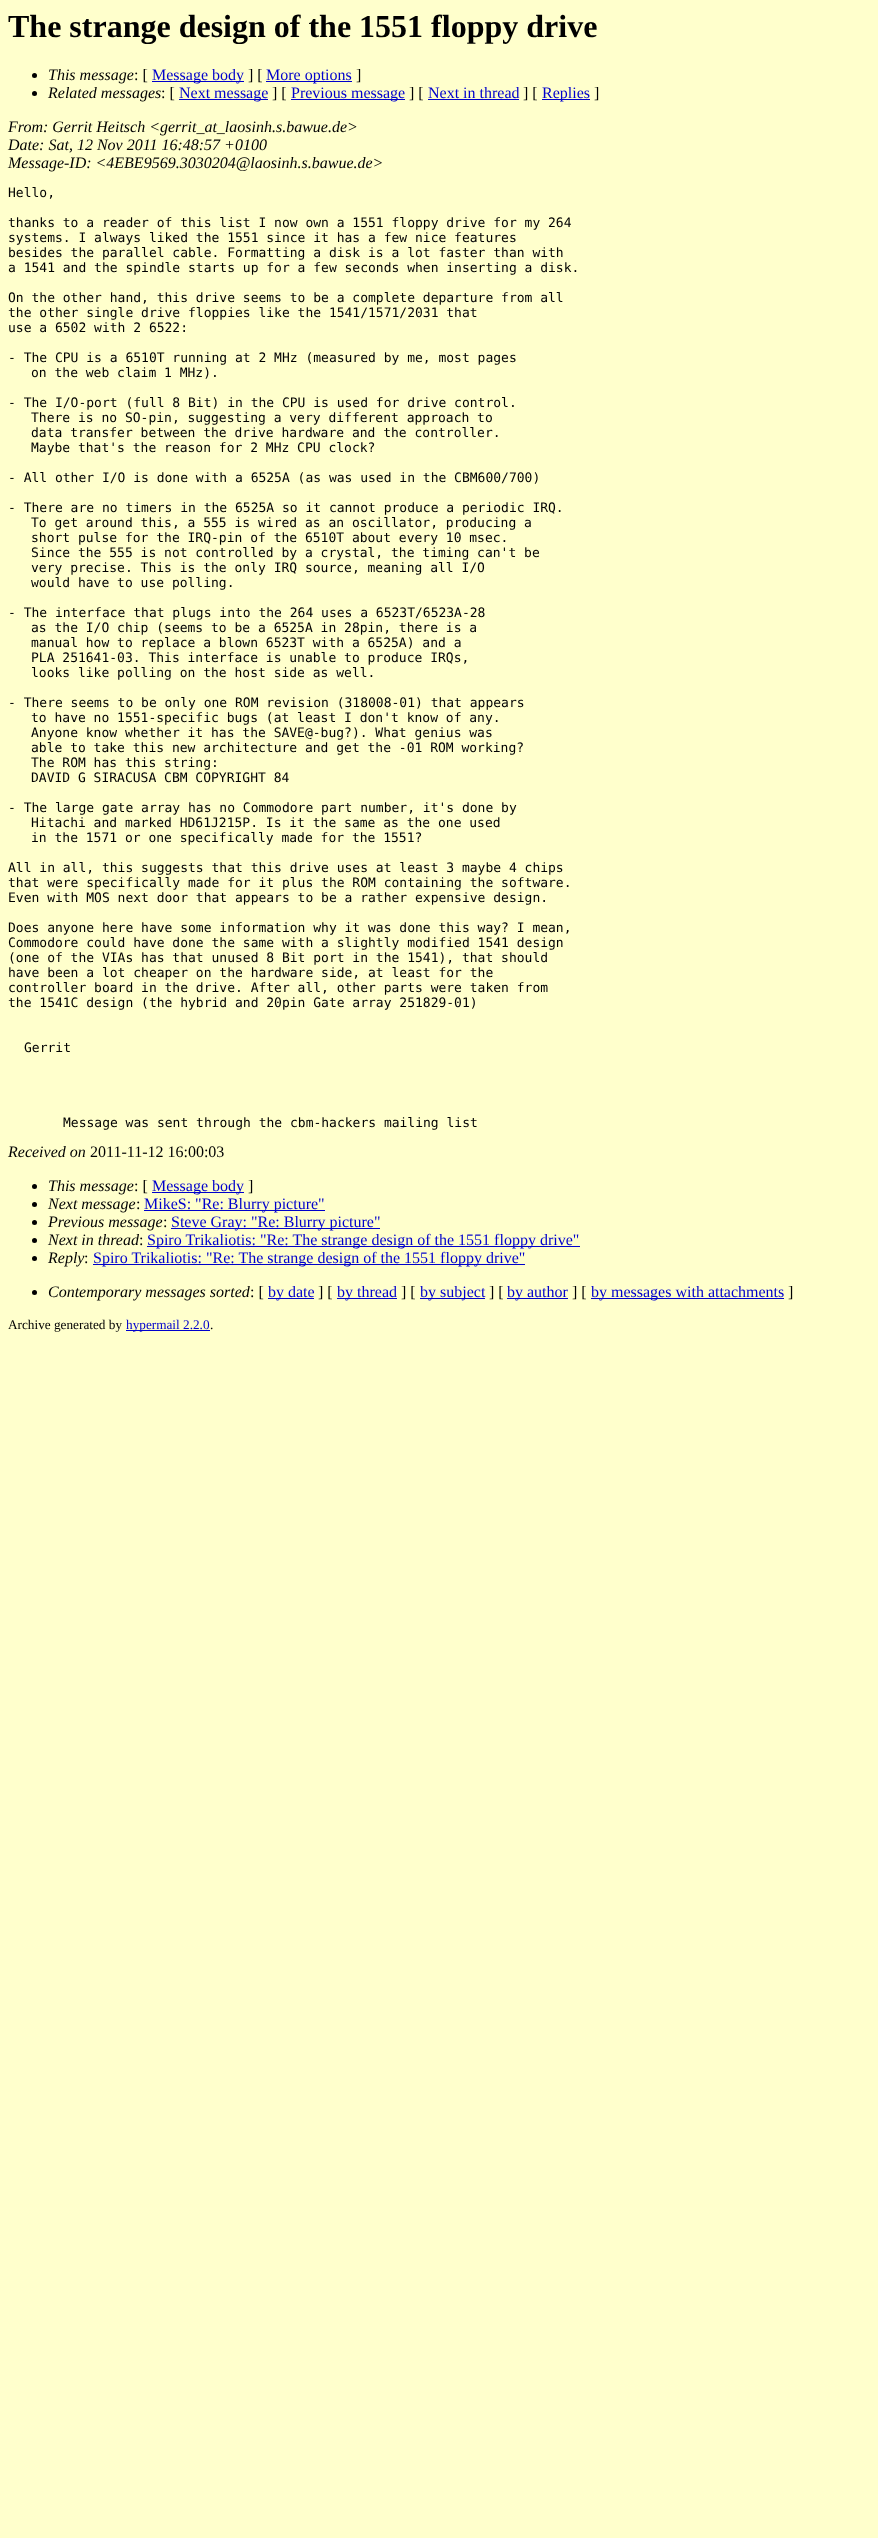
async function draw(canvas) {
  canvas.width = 878;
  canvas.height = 2538;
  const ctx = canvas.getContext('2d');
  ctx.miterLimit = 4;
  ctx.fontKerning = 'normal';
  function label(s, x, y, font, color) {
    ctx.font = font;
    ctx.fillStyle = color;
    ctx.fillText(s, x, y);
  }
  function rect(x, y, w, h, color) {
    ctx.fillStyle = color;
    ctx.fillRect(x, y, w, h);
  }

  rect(0, 0, 878, 2538, '#ffc');
  label('The strange design of the 1551 floppy drive', 8, 37, 'bold 32px Liberation Serif', '#000');
  ctx.beginPath();
  ctx.arc(34.5, 75.5, 2.5, 0, 2 * Math.PI);
  ctx.fill();
  label('This message', 48, 80, 'italic 16px Liberation Serif', '#000');
  label(': [', 134, 80, '16px Liberation Serif', '#000');
  rect(152, 81, 92, 1, '#00c');
  label('Message body', 152, 80, '16px Liberation Serif', '#00c');
  label('] [', 248, 80, '16px Liberation Serif', '#000');
  rect(266, 81, 86, 1, '#00c');
  label('More options', 266, 80, '16px Liberation Serif', '#00c');
  label(']', 356, 80, '16px Liberation Serif', '#000');
  ctx.beginPath();
  ctx.arc(34.5, 93.5, 2.5, 0, 2 * Math.PI);
  ctx.fill();
  label('Related messages', 48, 98, 'italic 16px Liberation Serif', '#000');
  label(': [', 161, 98, '16px Liberation Serif', '#000');
  rect(179, 99, 89, 1, '#00c');
  label('Next message', 179, 98, '16px Liberation Serif', '#00c');
  label('] [', 272, 98, '16px Liberation Serif', '#000');
  rect(291, 99, 114, 1, '#00c');
  label('Previous message', 291, 98, '16px Liberation Serif', '#00c');
  label('] [', 409, 98, '16px Liberation Serif', '#000');
  label('Next in thread', 428, 98, '16px Liberation Serif', '#00c');
  rect(428, 99, 91, 1, '#00c');
  label('] [', 523, 98, '16px Liberation Serif', '#000');
  rect(542, 99, 48, 1, '#00c');
  label('Replies', 542, 98, '16px Liberation Serif', '#00c');
  label(']', 594, 98, '16px Liberation Serif', '#000');
  label('From: Gerrit Heitsch <gerrit_at_laosinh.s.bawue.de>', 8, 132, 'italic 16px Liberation Serif', '#000');
  label('Date: Sat, 12 Nov 2011 16:48:57 +0100', 8, 150, 'italic 16px Liberation Serif', '#000');
  label('Message-ID: <4EBE9569.3030204@laosinh.s.bawue.de>', 8, 168, 'italic 16px Liberation Serif', '#000');
  label('Hello,', 8, 197, '13px DejaVu Sans Mono', '#000');
  label('thanks to a reader of this list I now own a 1551 floppy drive for my 264', 8, 227, '13px DejaVu Sans Mono', '#000');
  label('systems. I always liked the 1551 since it has a few nice features', 8, 242, '13px DejaVu Sans Mono', '#000');
  label('besides the parallel cable. Formatting a disk is a lot faster than with', 8, 257, '13px DejaVu Sans Mono', '#000');
  label('a 1541 and the spindle starts up for a few seconds when inserting a disk.', 8, 272, '13px DejaVu Sans Mono', '#000');
  label('On the other hand, this drive seems to be a complete departure from all', 8, 302, '13px DejaVu Sans Mono', '#000');
  label('the other single drive floppies like the 1541/1571/2031 that', 8, 317, '13px DejaVu Sans Mono', '#000');
  label('use a 6502 with 2 6522:', 8, 332, '13px DejaVu Sans Mono', '#000');
  label('- The CPU is a 6510T running at 2 MHz (measured by me, most pages', 8, 362, '13px DejaVu Sans Mono', '#000');
  label('on the web claim 1 MHz).', 31, 377, '13px DejaVu Sans Mono', '#000');
  label('- The I/O-port (full 8 Bit) in the CPU is used for drive control.', 8, 407, '13px DejaVu Sans Mono', '#000');
  label('There is no SO-pin, suggesting a very different approach to', 31, 422, '13px DejaVu Sans Mono', '#000');
  label('data transfer between the drive hardware and the controller.', 31, 437, '13px DejaVu Sans Mono', '#000');
  label('Maybe that\'s the reason for 2 MHz CPU clock?', 31, 452, '13px DejaVu Sans Mono', '#000');
  label('- All other I/O is done with a 6525A (as was used in the CBM600/700)', 8, 482, '13px DejaVu Sans Mono', '#000');
  label('- There are no timers in the 6525A so it cannot produce a periodic IRQ.', 8, 512, '13px DejaVu Sans Mono', '#000');
  label('To get around this, a 555 is wired as an oscillator, producing a', 31, 527, '13px DejaVu Sans Mono', '#000');
  label('short pulse for the IRQ-pin of the 6510T about every 10 msec.', 31, 542, '13px DejaVu Sans Mono', '#000');
  label('Since the 555 is not controlled by a crystal, the timing can\'t be', 31, 557, '13px DejaVu Sans Mono', '#000');
  label('very precise. This is the only IRQ source, meaning all I/O', 31, 572, '13px DejaVu Sans Mono', '#000');
  label('would have to use polling.', 31, 587, '13px DejaVu Sans Mono', '#000');
  label('- The interface that plugs into the 264 uses a 6523T/6523A-28', 8, 617, '13px DejaVu Sans Mono', '#000');
  label('as the I/O chip (seems to be a 6525A in 28pin, there is a', 31, 632, '13px DejaVu Sans Mono', '#000');
  label('manual how to replace a blown 6523T with a 6525A) and a', 31, 647, '13px DejaVu Sans Mono', '#000');
  label('PLA 251641-03. This interface is unable to produce IRQs,', 31, 662, '13px DejaVu Sans Mono', '#000');
  label('looks like polling on the host side as well.', 31, 677, '13px DejaVu Sans Mono', '#000');
  label('- There seems to be only one ROM revision (318008-01) that appears', 8, 707, '13px DejaVu Sans Mono', '#000');
  label('to have no 1551-specific bugs (at least I don\'t know of any.', 31, 722, '13px DejaVu Sans Mono', '#000');
  label('Anyone know whether it has the SAVE@-bug?). What genius was', 31, 737, '13px DejaVu Sans Mono', '#000');
  label('able to take this new architecture and get the -01 ROM working?', 31, 752, '13px DejaVu Sans Mono', '#000');
  label('The ROM has this string:', 31, 767, '13px DejaVu Sans Mono', '#000');
  label('DAVID G SIRACUSA CBM COPYRIGHT 84', 31, 782, '13px DejaVu Sans Mono', '#000');
  label('- The large gate array has no Commodore part number, it\'s done by', 8, 812, '13px DejaVu Sans Mono', '#000');
  label('Hitachi and marked HD61J215P. Is it the same as the one used', 31, 827, '13px DejaVu Sans Mono', '#000');
  label('in the 1571 or one specifically made for the 1551?', 31, 842, '13px DejaVu Sans Mono', '#000');
  label('All in all, this suggests that this drive uses at least 3 maybe 4 chips', 8, 872, '13px DejaVu Sans Mono', '#000');
  label('that were specifically made for it plus the ROM containing the software.', 8, 887, '13px DejaVu Sans Mono', '#000');
  label('Even with MOS next door that appears to be a rather expensive design.', 8, 902, '13px DejaVu Sans Mono', '#000');
  label('Does anyone here have some information why it was done this way? I mean,', 8, 932, '13px DejaVu Sans Mono', '#000');
  label('Commodore could have done the same with a slightly modified 1541 design', 8, 947, '13px DejaVu Sans Mono', '#000');
  label('(one of the VIAs has that unused 8 Bit port in the 1541), that should', 8, 962, '13px DejaVu Sans Mono', '#000');
  label('have been a lot cheaper on the hardware side, at least for the', 8, 977, '13px DejaVu Sans Mono', '#000');
  label('controller board in the drive. After all, other parts were taken from', 8, 992, '13px DejaVu Sans Mono', '#000');
  label('the 1541C design (the hybrid and 20pin Gate array 251829-01)', 8, 1007, '13px DejaVu Sans Mono', '#000');
  label('Gerrit', 24, 1052, '13px DejaVu Sans Mono', '#000');
  label('Message was sent through the cbm-hackers mailing list', 63, 1127, '13px DejaVu Sans Mono', '#000');
  label('Received on', 8, 1157, 'italic 16px Liberation Serif', '#000');
  label('2011-11-12 16:00:03', 90, 1157, '16px Liberation Serif', '#000');
  ctx.beginPath();
  ctx.arc(34.5, 1186.5, 2.5, 0, 2 * Math.PI);
  ctx.fill();
  label('This message', 48, 1191, 'italic 16px Liberation Serif', '#000');
  label(': [', 134, 1191, '16px Liberation Serif', '#000');
  rect(152, 1192, 92, 1, '#00c');
  label('Message body', 152, 1191, '16px Liberation Serif', '#00c');
  label(']', 248, 1191, '16px Liberation Serif', '#000');
  ctx.beginPath();
  ctx.arc(34.5, 1204.5, 2.5, 0, 2 * Math.PI);
  ctx.fill();
  label('Next message', 48, 1209, 'italic 16px Liberation Serif', '#000');
  label(':', 136, 1209, '16px Liberation Serif', '#000');
  rect(144, 1210, 181, 1, '#00c');
  label('MikeS: "Re: Blurry picture"', 144, 1209, '16px Liberation Serif', '#00c');
  ctx.fillStyle = '#000';
  ctx.beginPath();
  ctx.arc(34.5, 1222.5, 2.5, 0, 2 * Math.PI);
  ctx.fill();
  label('Previous message', 48, 1227, 'italic 16px Liberation Serif', '#000');
  label(':', 163, 1227, '16px Liberation Serif', '#000');
  rect(171, 1228, 209, 1, '#00c');
  label('Steve Gray: "Re: Blurry picture"', 171, 1227, '16px Liberation Serif', '#00c');
  ctx.fillStyle = '#000';
  ctx.beginPath();
  ctx.arc(34.5, 1240.5, 2.5, 0, 2 * Math.PI);
  ctx.fill();
  label('Next in thread', 48, 1245, 'italic 16px Liberation Serif', '#000');
  label(':', 139, 1245, '16px Liberation Serif', '#000');
  rect(147, 1246, 433, 1, '#00c');
  label('Spiro Trikaliotis: "Re: The strange design of the 1551 floppy drive"', 147, 1245, '16px Liberation Serif', '#00c');
  ctx.fillStyle = '#000';
  ctx.beginPath();
  ctx.arc(34.5, 1258.5, 2.5, 0, 2 * Math.PI);
  ctx.fill();
  label('Reply', 48, 1263, 'italic 16px Liberation Serif', '#000');
  label(':', 84, 1263, '16px Liberation Serif', '#000');
  rect(93, 1264, 432, 1, '#00c');
  label('Spiro Trikaliotis: "Re: The strange design of the 1551 floppy drive"', 93, 1263, '16px Liberation Serif', '#00c');
  ctx.fillStyle = '#000';
  ctx.beginPath();
  ctx.arc(34.5, 1292.5, 2.5, 0, 2 * Math.PI);
  ctx.fill();
  label('Contemporary messages sorted', 48, 1297, 'italic 16px Liberation Serif', '#000');
  label(': [', 250, 1297, '16px Liberation Serif', '#000');
  rect(268, 1298, 46, 1, '#00c');
  label('by date', 268, 1297, '16px Liberation Serif', '#00c');
  label('] [', 318, 1297, '16px Liberation Serif', '#000');
  rect(337, 1298, 60, 1, '#00c');
  label('by thread', 337, 1297, '16px Liberation Serif', '#00c');
  label('] [', 401, 1297, '16px Liberation Serif', '#000');
  rect(420, 1298, 65, 1, '#00c');
  label('by subject', 420, 1297, '16px Liberation Serif', '#00c');
  label('] [', 489, 1297, '16px Liberation Serif', '#000');
  rect(507, 1298, 61, 1, '#00c');
  label('by author', 507, 1297, '16px Liberation Serif', '#00c');
  label('] [', 572, 1297, '16px Liberation Serif', '#000');
  rect(591, 1298, 193, 1, '#00c');
  label('by messages with attachments', 591, 1297, '16px Liberation Serif', '#00c');
  label(']', 788, 1297, '16px Liberation Serif', '#000');
  label('Archive generated by', 8, 1329, '13.25px Liberation Serif', '#000');
  rect(126, 1330, 84, 1, '#00c');
  label('hypermail 2.2.0', 126, 1329, '13.25px Liberation Serif', '#00c');
  label('.', 210, 1329, '13.25px Liberation Serif', '#000');
}

draw(document.querySelector('canvas'));
